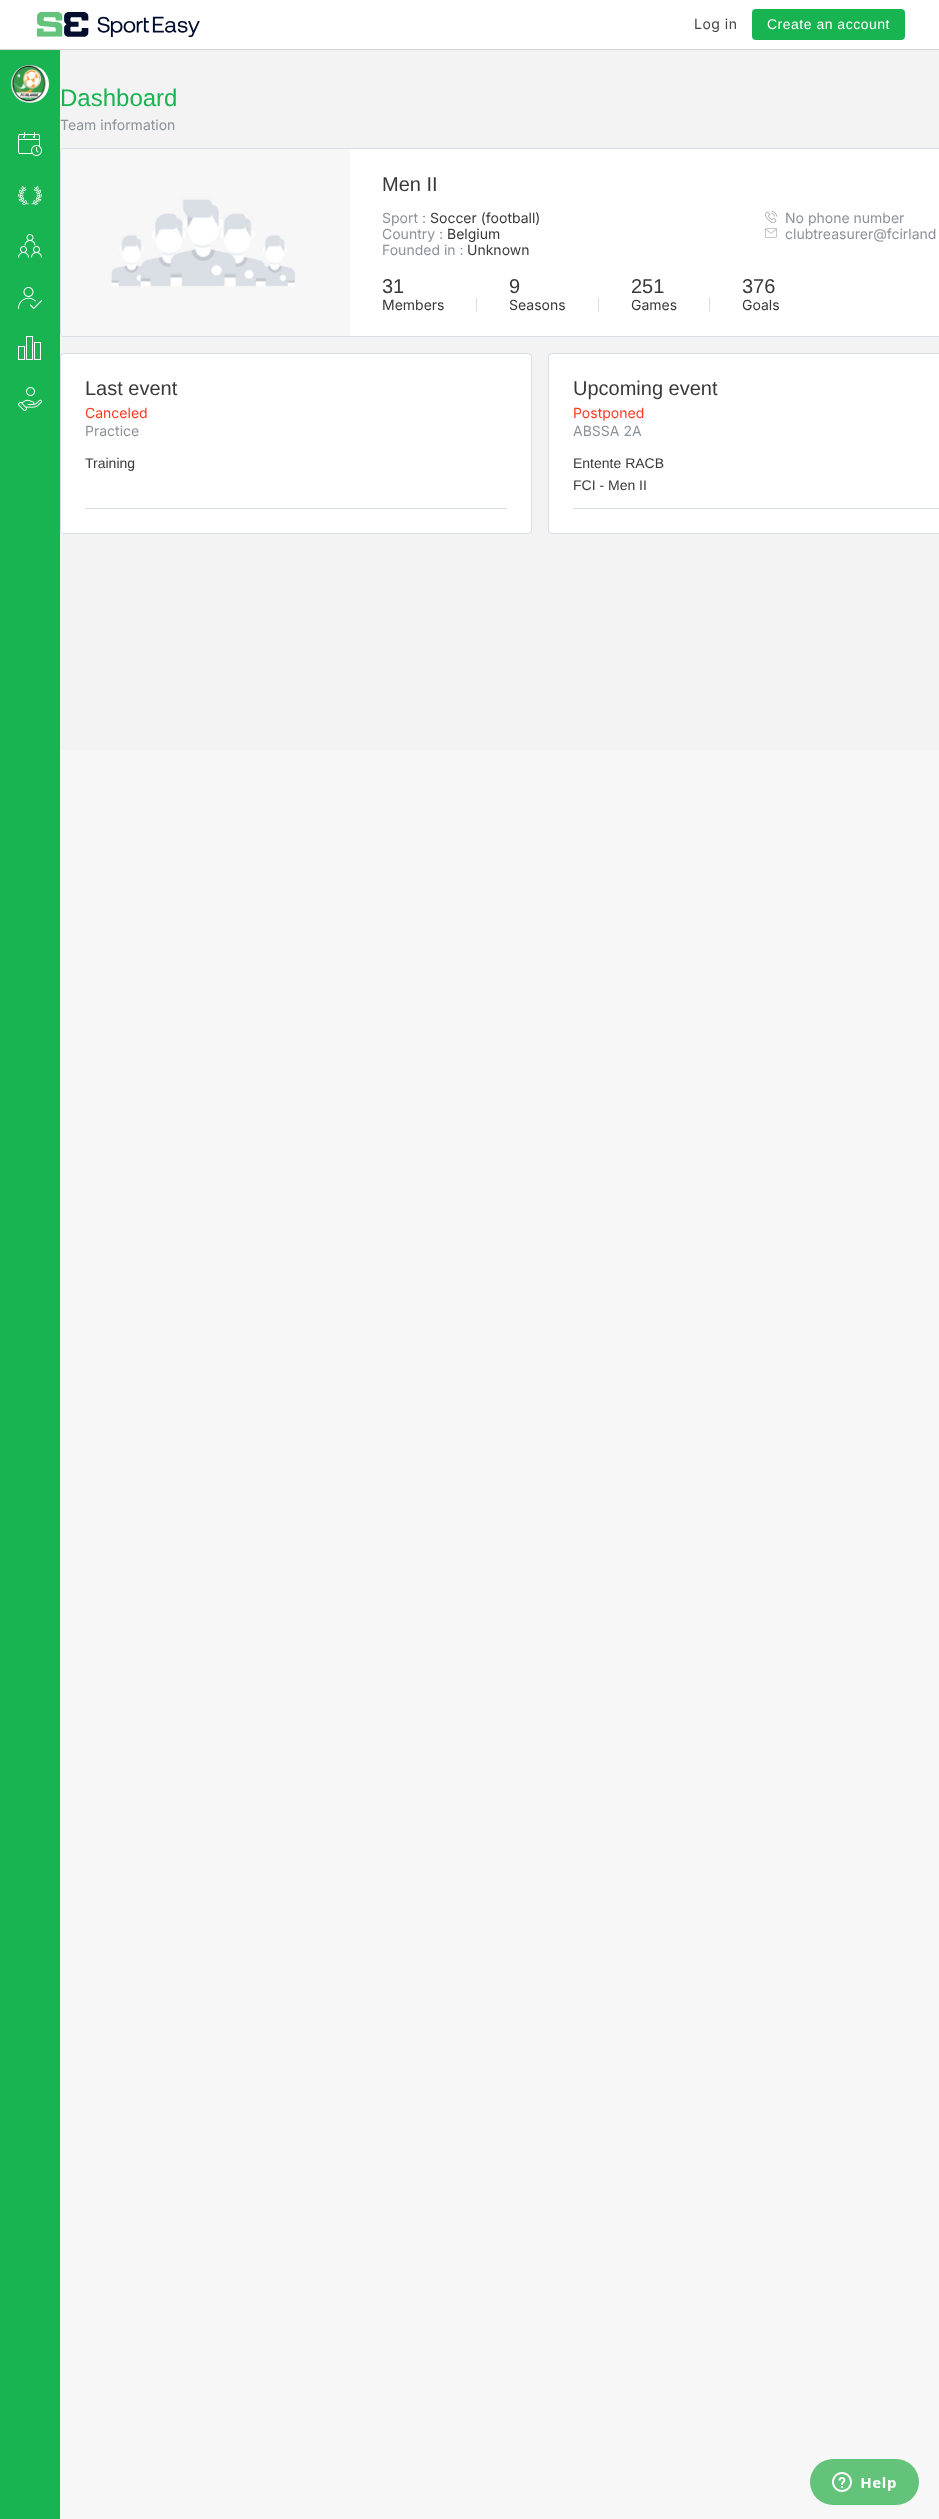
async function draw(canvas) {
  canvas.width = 939;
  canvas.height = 2519;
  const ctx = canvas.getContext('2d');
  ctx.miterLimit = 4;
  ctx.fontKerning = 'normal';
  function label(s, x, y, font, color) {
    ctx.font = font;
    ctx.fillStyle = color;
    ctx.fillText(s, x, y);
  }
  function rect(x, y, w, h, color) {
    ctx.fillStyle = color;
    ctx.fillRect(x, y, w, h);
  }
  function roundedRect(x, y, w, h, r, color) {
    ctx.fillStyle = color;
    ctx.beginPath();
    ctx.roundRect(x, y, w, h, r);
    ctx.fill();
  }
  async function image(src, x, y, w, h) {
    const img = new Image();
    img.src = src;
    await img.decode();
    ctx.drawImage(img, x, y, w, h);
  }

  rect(0, 0, 939, 2519, '#f7f7f7');
  rect(60, 50, 879, 700, '#f3f3f3');
  rect(0, 0, 939, 49, '#fff');
  rect(0, 49, 939, 1, '#d3d3d3');
  await image('assets/img1.png', 37, 12, 163, 25);
  ctx.letterSpacing = '0.5px';
  label('Log in', 694, 29, '14px Inter', '#454545');
  roundedRect(752, 9, 153, 31, 4, '#18b451');
  label('Create an account', 767, 29, '14px Liberation Sans', '#fff');
  rect(0, 50, 60, 2469, '#18b451');
  await image('assets/img2.png', 11, 65, 38, 38);
  await image('assets/img3.png', 18, 132, 24, 24);
  await image('assets/img4.png', 18, 186, 24, 19);
  await image('assets/img5.png', 18, 234, 24, 24);
  await image('assets/img6.png', 18, 287, 24, 22);
  await image('assets/img7.png', 18, 336, 23, 24);
  await image('assets/img8.png', 18, 387, 24, 24);
  ctx.letterSpacing = '0px';
  label('Dashboard', 60, 106, '24px Liberation Sans', '#18b451');
  label('Team information', 60, 130, '14px Inter', '#8c929a');
  ctx.fillStyle = '#fff';
  ctx.beginPath();
  ctx.roundRect(60.5, 148.5, 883, 188, 3.5);
  ctx.fill();
  ctx.strokeStyle = '#dadfe6';
  ctx.stroke();
  await image('assets/img9.png', 61, 149, 289, 187);
  label('Men II', 382, 191, '20px Liberation Sans', '#393939');
  label('Sport :', 382, 223, '14px Inter', '#8c929a');
  label('Soccer (football)', 430, 223, '14px Inter', '#393939');
  label('Country :', 382, 239, '14px Inter', '#8c929a');
  label('Belgium', 447, 239, '14px Inter', '#393939');
  label('Founded in :', 382, 255, '14px Inter', '#8c929a');
  label('Unknown', 467, 255, '14px Inter', '#393939');
  await image('assets/img10.png', 765, 211, 12, 12);
  label('No phone number', 785, 223, '14px Inter', '#8c929a');
  await image('assets/img11.png', 765, 228, 12, 10);
  label('clubtreasurer@fcirland', 785, 239, '14px Inter', '#8c929a');
  label('31', 382, 293, '20px Liberation Sans', '#393939');
  rect(476, 298, 1, 14, '#dadfe6');
  label('Members', 382, 310, '14px Inter', '#393939');
  label('9', 509, 293, '20px Liberation Sans', '#393939');
  rect(598, 298, 1, 14, '#dadfe6');
  label('Seasons', 509, 310, '14px Inter', '#393939');
  label('251', 631, 293, '20px Liberation Sans', '#393939');
  rect(709, 298, 1, 14, '#dadfe6');
  label('Games', 631, 310, '14px Inter', '#393939');
  label('376', 742, 293, '20px Liberation Sans', '#393939');
  label('Goals', 742, 310, '14px Inter', '#393939');
  ctx.fillStyle = '#fff';
  ctx.beginPath();
  ctx.roundRect(60.5, 353.5, 471, 180, 3.5);
  ctx.fill();
  ctx.stroke();
  label('Last event', 85, 395, '20px Liberation Sans', '#393939');
  label('Canceled', 85, 418, '14px Inter', '#fe3824');
  label('Practice', 85, 436, '14px Inter', '#8c929a');
  label('Training', 85, 468, '14px Liberation Sans', '#393939');
  rect(85, 508, 422, 1, '#dadfe6');
  ctx.fillStyle = '#fff';
  ctx.beginPath();
  ctx.roundRect(548.5, 353.5, 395, 180, 3.5);
  ctx.fill();
  ctx.stroke();
  label('Upcoming event', 573, 395, '20px Liberation Sans', '#393939');
  label('Postponed', 573, 418, '14px Inter', '#fe3824');
  label('ABSSA 2A', 573, 436, '14px Inter', '#8c929a');
  label('Entente RACB', 573, 468, '14px Liberation Sans', '#393939');
  label('FCI - Men II', 573, 490, '14px Liberation Sans', '#393939');
  rect(573, 508, 366, 1, '#dadfe6');
  await image('assets/img12.png', 810, 2459, 109, 46);
}

draw(document.querySelector('canvas'));
